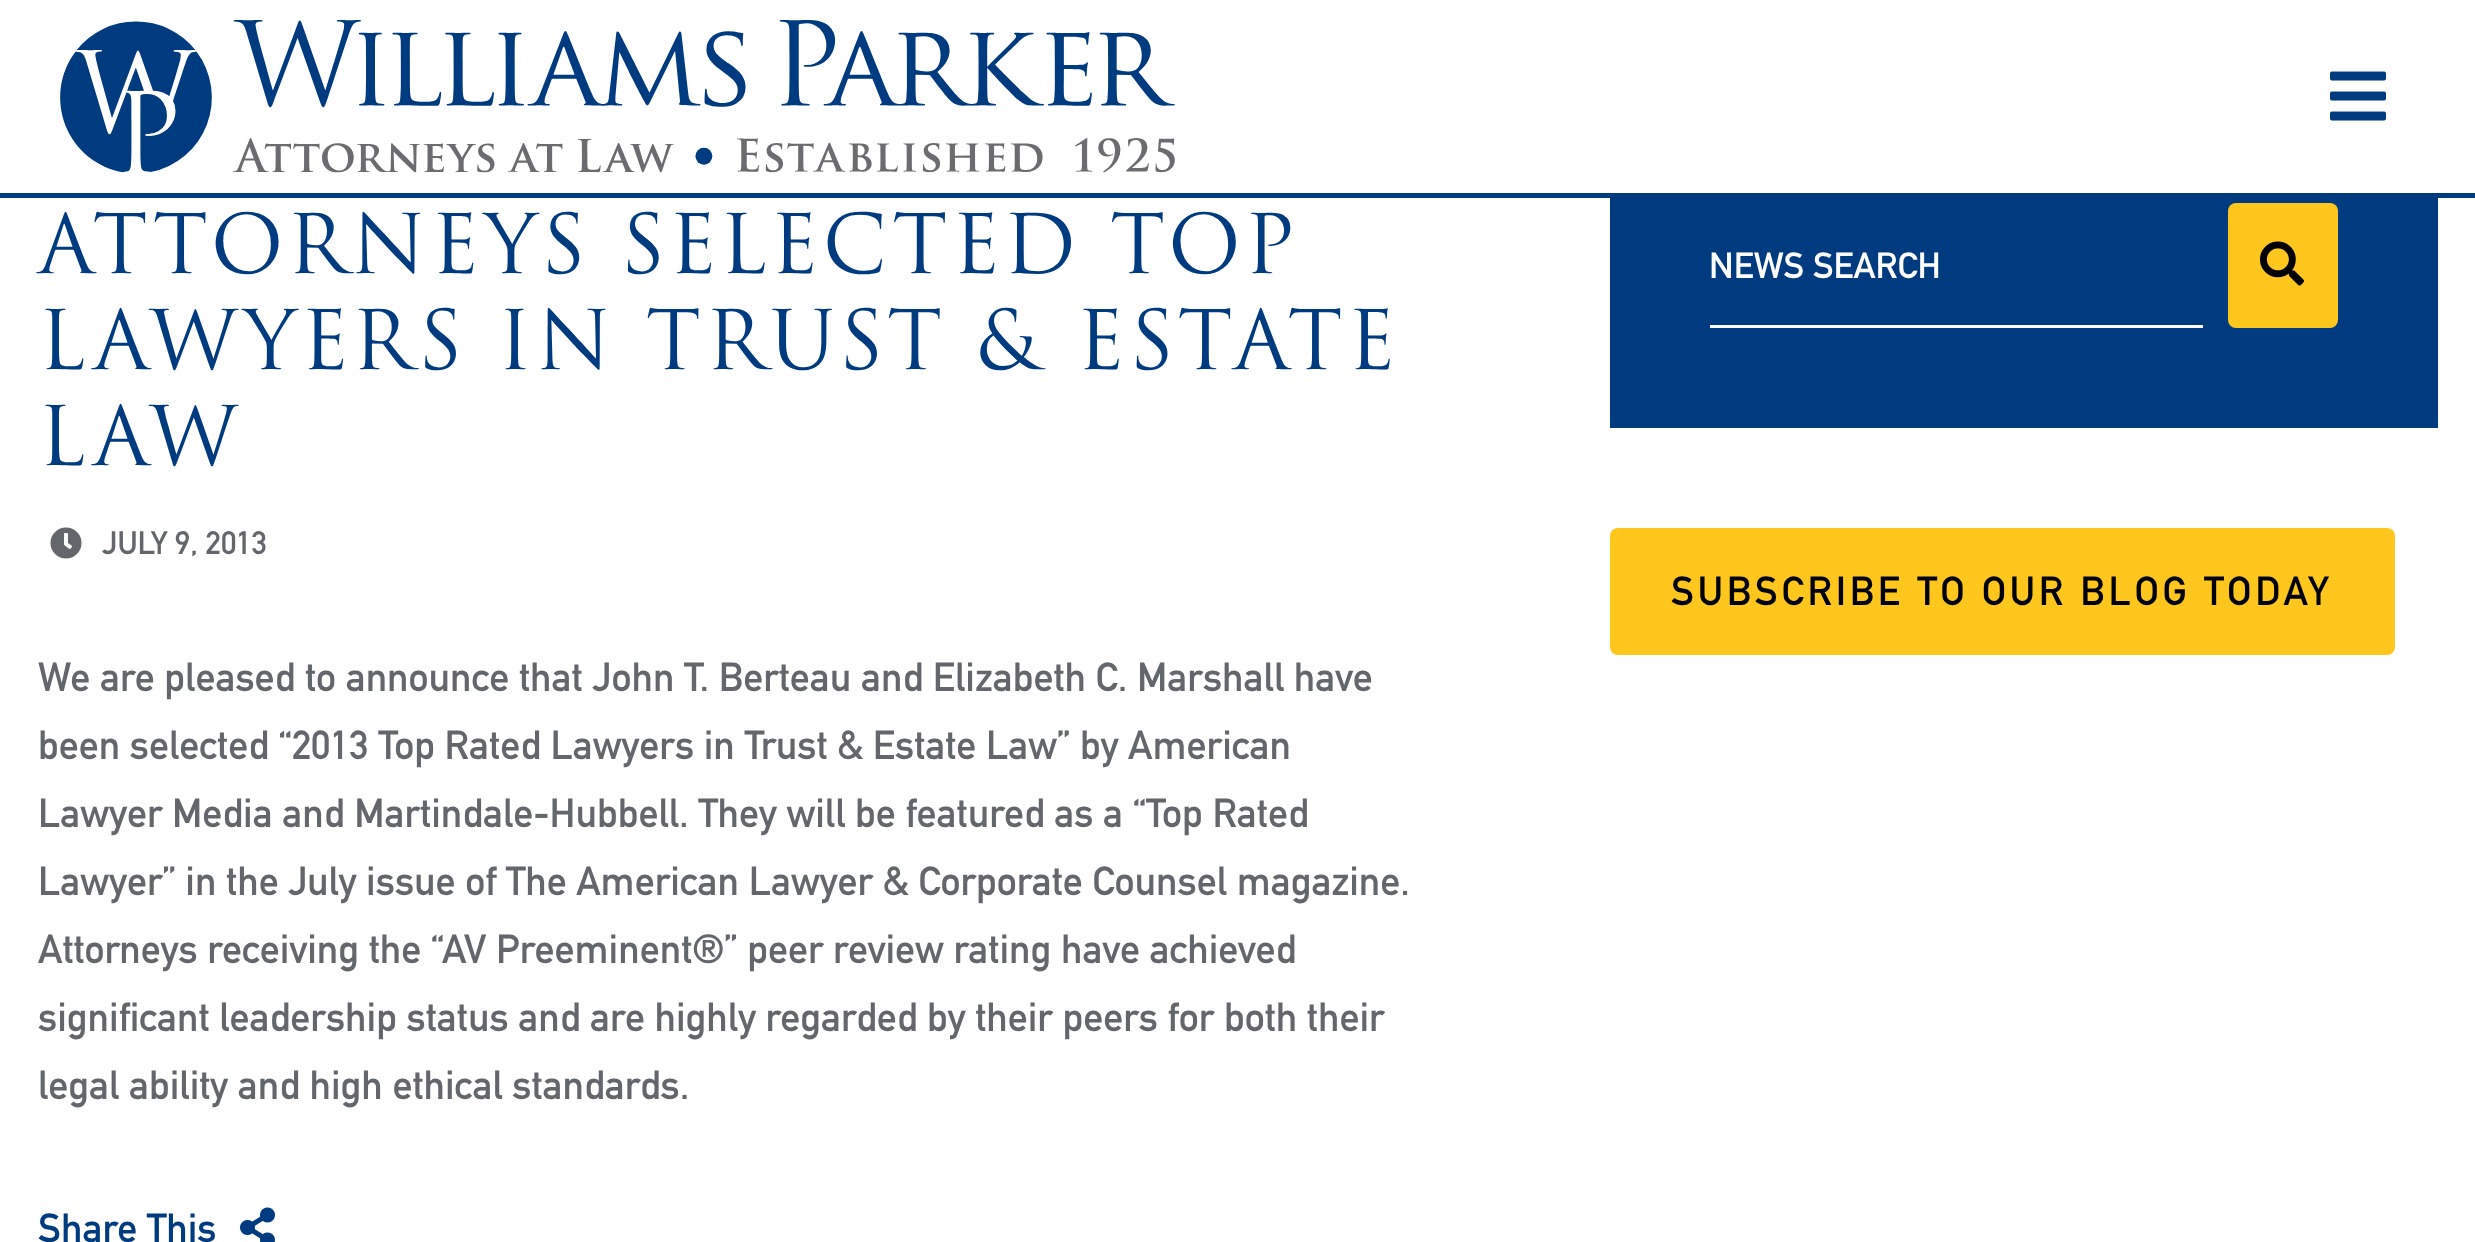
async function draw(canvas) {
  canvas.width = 2475;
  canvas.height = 1242;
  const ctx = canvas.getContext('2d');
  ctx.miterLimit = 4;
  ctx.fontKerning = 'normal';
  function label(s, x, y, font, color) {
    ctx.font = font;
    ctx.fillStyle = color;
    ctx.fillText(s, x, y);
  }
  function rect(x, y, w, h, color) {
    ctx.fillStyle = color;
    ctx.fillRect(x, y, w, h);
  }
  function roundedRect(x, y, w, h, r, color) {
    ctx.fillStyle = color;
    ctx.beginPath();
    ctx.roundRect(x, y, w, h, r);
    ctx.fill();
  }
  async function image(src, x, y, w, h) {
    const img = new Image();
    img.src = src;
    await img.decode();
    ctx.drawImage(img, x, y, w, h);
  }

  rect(0, 0, 2475, 1242, '#fff');
  rect(0, 193, 2475, 5, '#003a7f');
  await image('assets/img1.png', 60, 20, 1115, 153);
  await image('assets/img2.png', 2330, 71, 56, 50);
  ctx.letterSpacing = '4px';
  label('ATTORNEYS SELECTED TOP', 38, 273, '80px "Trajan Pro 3"', '#003a7f');
  label('LAWYERS IN TRUST & ESTATE', 38, 369, '80px "Trajan Pro 3"', '#003a7f');
  label('LAW', 38, 465, '80px "Trajan Pro 3"', '#003a7f');
  await image('assets/img3.png', 50, 527, 32, 32);
  ctx.letterSpacing = '0px';
  label('JULY 9, 2013', 102, 554, 'bold 32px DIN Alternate', '#63666a');
  label('We are pleased to announce that John T. Berteau and Elizabeth C. Marshall have', 38, 691, 'bold 40px DIN Alternate', '#63666a');
  label('been selected “2013 Top Rated Lawyers in Trust & Estate Law” by American', 38, 759, 'bold 40px DIN Alternate', '#63666a');
  label('Lawyer Media and Martindale-Hubbell. They will be featured as a “Top Rated', 38, 827, 'bold 40px DIN Alternate', '#63666a');
  label('Lawyer” in the July issue of The American Lawyer & Corporate Counsel magazine.', 38, 895, 'bold 40px DIN Alternate', '#63666a');
  label('Attorneys receiving the “AV Preeminent®” peer review rating have achieved', 38, 963, 'bold 40px DIN Alternate', '#63666a');
  label('significant leadership status and are highly regarded by their peers for both their', 38, 1031, 'bold 40px DIN Alternate', '#63666a');
  label('legal ability and high ethical standards.', 38, 1099, 'bold 40px DIN Alternate', '#63666a');
  label('Share This', 38, 1242, 'bold 40px DIN Alternate', '#003a7f');
  await image('assets/img4.png', 240, 1207, 35, 35);
  rect(1610, 198, 828, 230, '#003a7f');
  label('NEWS SEARCH', 1709, 278, 'bold 36px DIN Alternate', '#fff');
  roundedRect(2228, 203, 110, 125, 8, '#ffc61e');
  await image('assets/img5.png', 2260, 241, 44, 45);
  rect(1710, 325, 493, 3, '#fff');
  roundedRect(1610, 528, 785, 127, 8, '#ffc61e');
  ctx.letterSpacing = '3.75px';
  label('SUBSCRIBE TO OUR BLOG TODAY', 1671, 605, 'bold 40px DIN Alternate', '#000');
}

draw(document.querySelector('canvas'));
